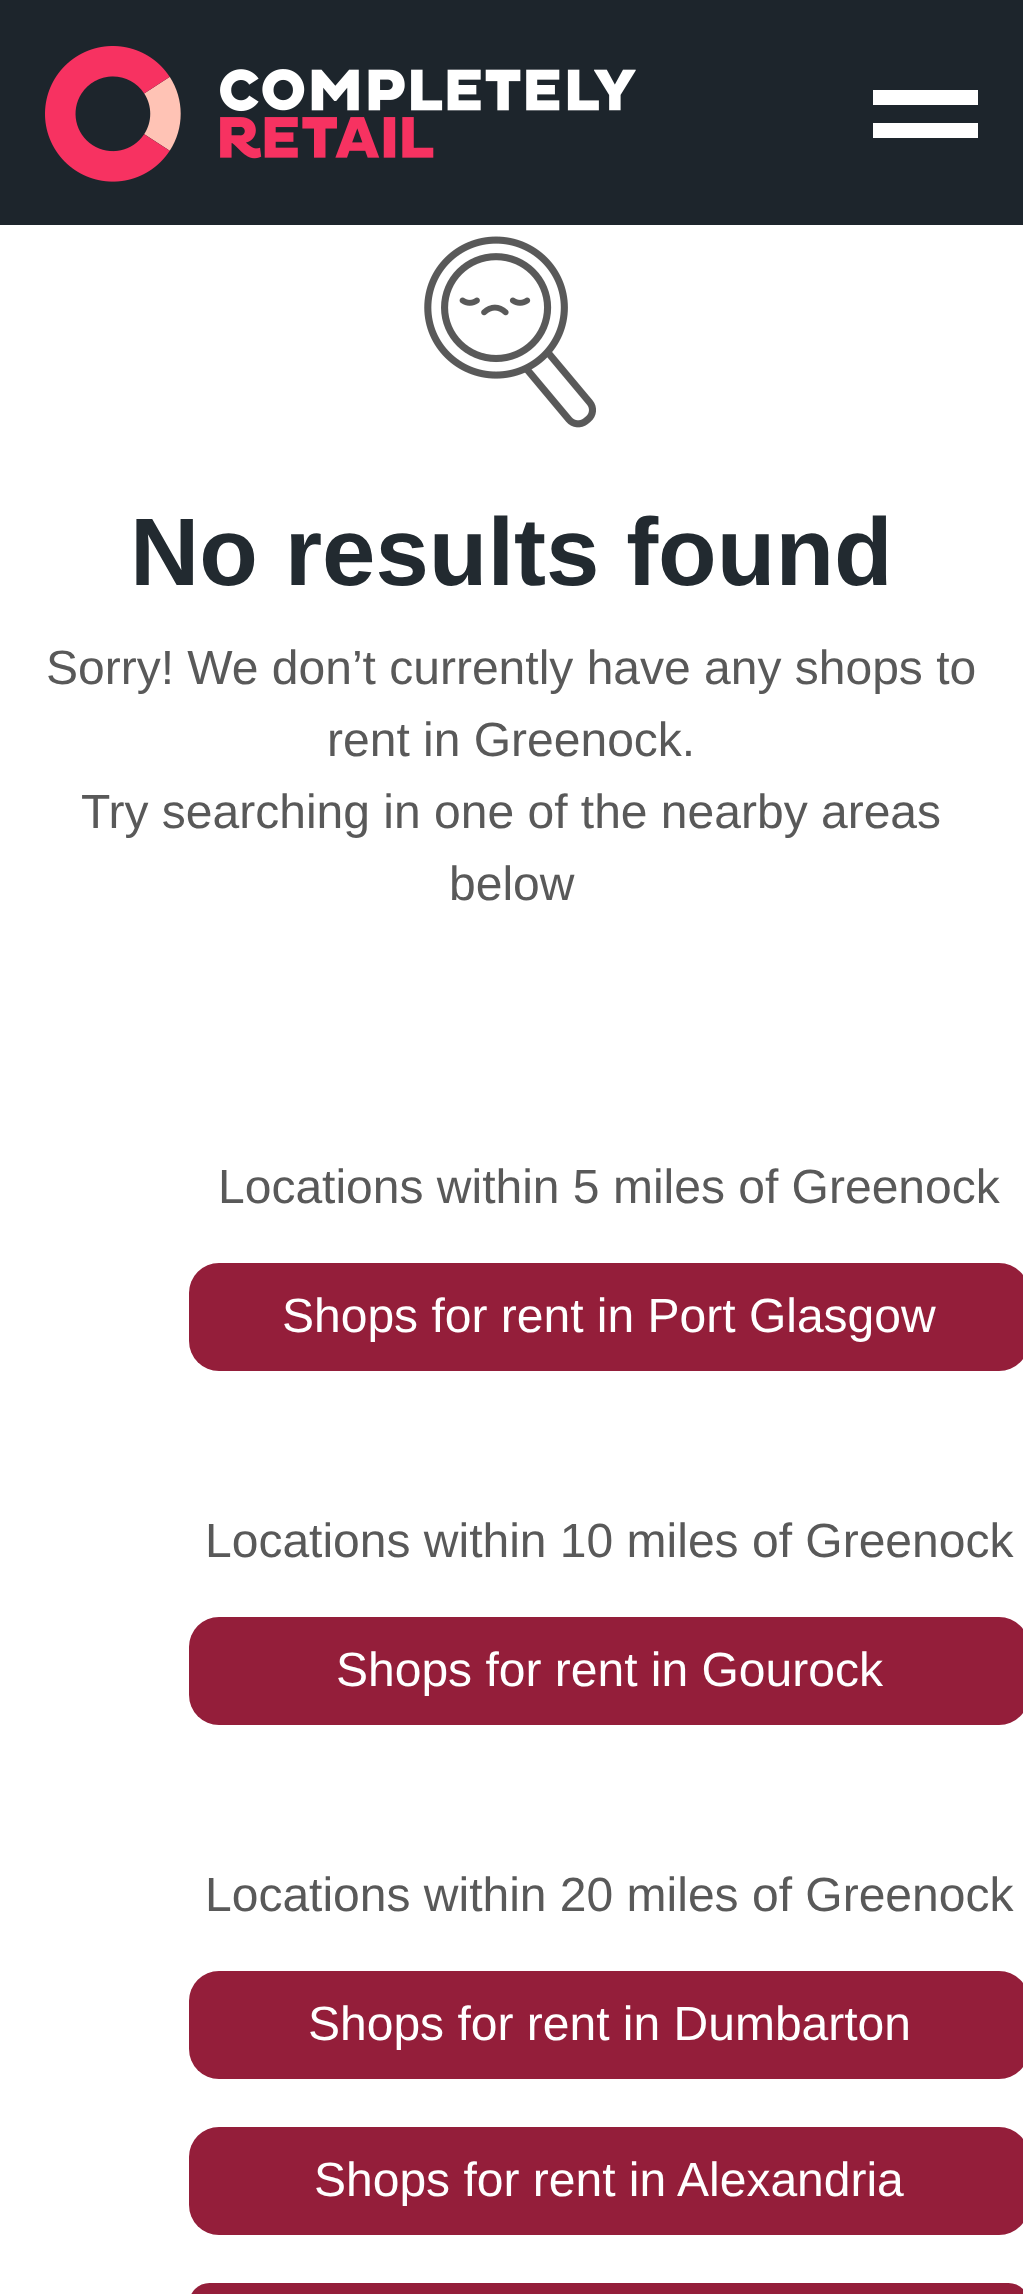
async function draw(canvas) {
  canvas.width = 1023;
  canvas.height = 2294;
  const ctx = canvas.getContext('2d');
  ctx.miterLimit = 4;
  ctx.fontKerning = 'normal';
  function label(s, x, y, font, color) {
    ctx.font = font;
    ctx.fillStyle = color;
    ctx.fillText(s, x, y);
  }
  function rect(x, y, w, h, color) {
    ctx.fillStyle = color;
    ctx.fillRect(x, y, w, h);
  }
  function roundedRect(x, y, w, h, r, color) {
    ctx.fillStyle = color;
    ctx.beginPath();
    ctx.roundRect(x, y, w, h, r);
    ctx.fill();
  }
  async function image(src, x, y, w, h) {
    const img = new Image();
    img.src = src;
    await img.decode();
    ctx.drawImage(img, x, y, w, h);
  }

  rect(0, 0, 1023, 2294, '#fff');
  rect(0, 0, 1023, 225, '#1d252c');
  await image('assets/img1.png', 45, 46, 591, 136);
  rect(873, 90, 105, 15, '#fff');
  rect(873, 123, 105, 15, '#fff');
  await image('assets/img2.png', 424, 236, 172, 192);
  label('No results found', 130, 585, 'bold 96px Liberation Sans', '#222a30');
  label('Sorry! We don’t currently have any shops to', 46, 684, '48px Liberation Sans', '#595959');
  label('rent in Greenock.', 327, 756, '48px Liberation Sans', '#595959');
  label('Try searching in one of the nearby areas', 81, 828, '48px Liberation Sans', '#595959');
  label('below', 449, 900, '48px Liberation Sans', '#595959');
  label('Locations within 5 miles of Greenock', 218, 1203, '48px Liberation Sans', '#595959');
  roundedRect(189, 1263, 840, 108, 30, '#941e3a');
  label('Shops for rent in Port Glasgow', 282, 1332, '48px Liberation Sans', '#fff');
  label('Locations within 10 miles of Greenock', 205, 1557, '48px Liberation Sans', '#595959');
  roundedRect(189, 1617, 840, 108, 30, '#941e3a');
  label('Shops for rent in Gourock', 336, 1686, '48px Liberation Sans', '#fff');
  label('Locations within 20 miles of Greenock', 205, 1911, '48px Liberation Sans', '#595959');
  roundedRect(189, 1971, 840, 108, 30, '#941e3a');
  label('Shops for rent in Dumbarton', 308, 2040, '48px Liberation Sans', '#fff');
  roundedRect(189, 2127, 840, 108, 30, '#941e3a');
  label('Shops for rent in', 314, 2196, '48px Liberation Sans', '#fff');
  label('Alexandria', 677, 2196, '48px Liberation Sans', '#fff');
  roundedRect(189, 2283, 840, 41, 30, '#941e3a');
}

draw(document.querySelector('canvas'));
